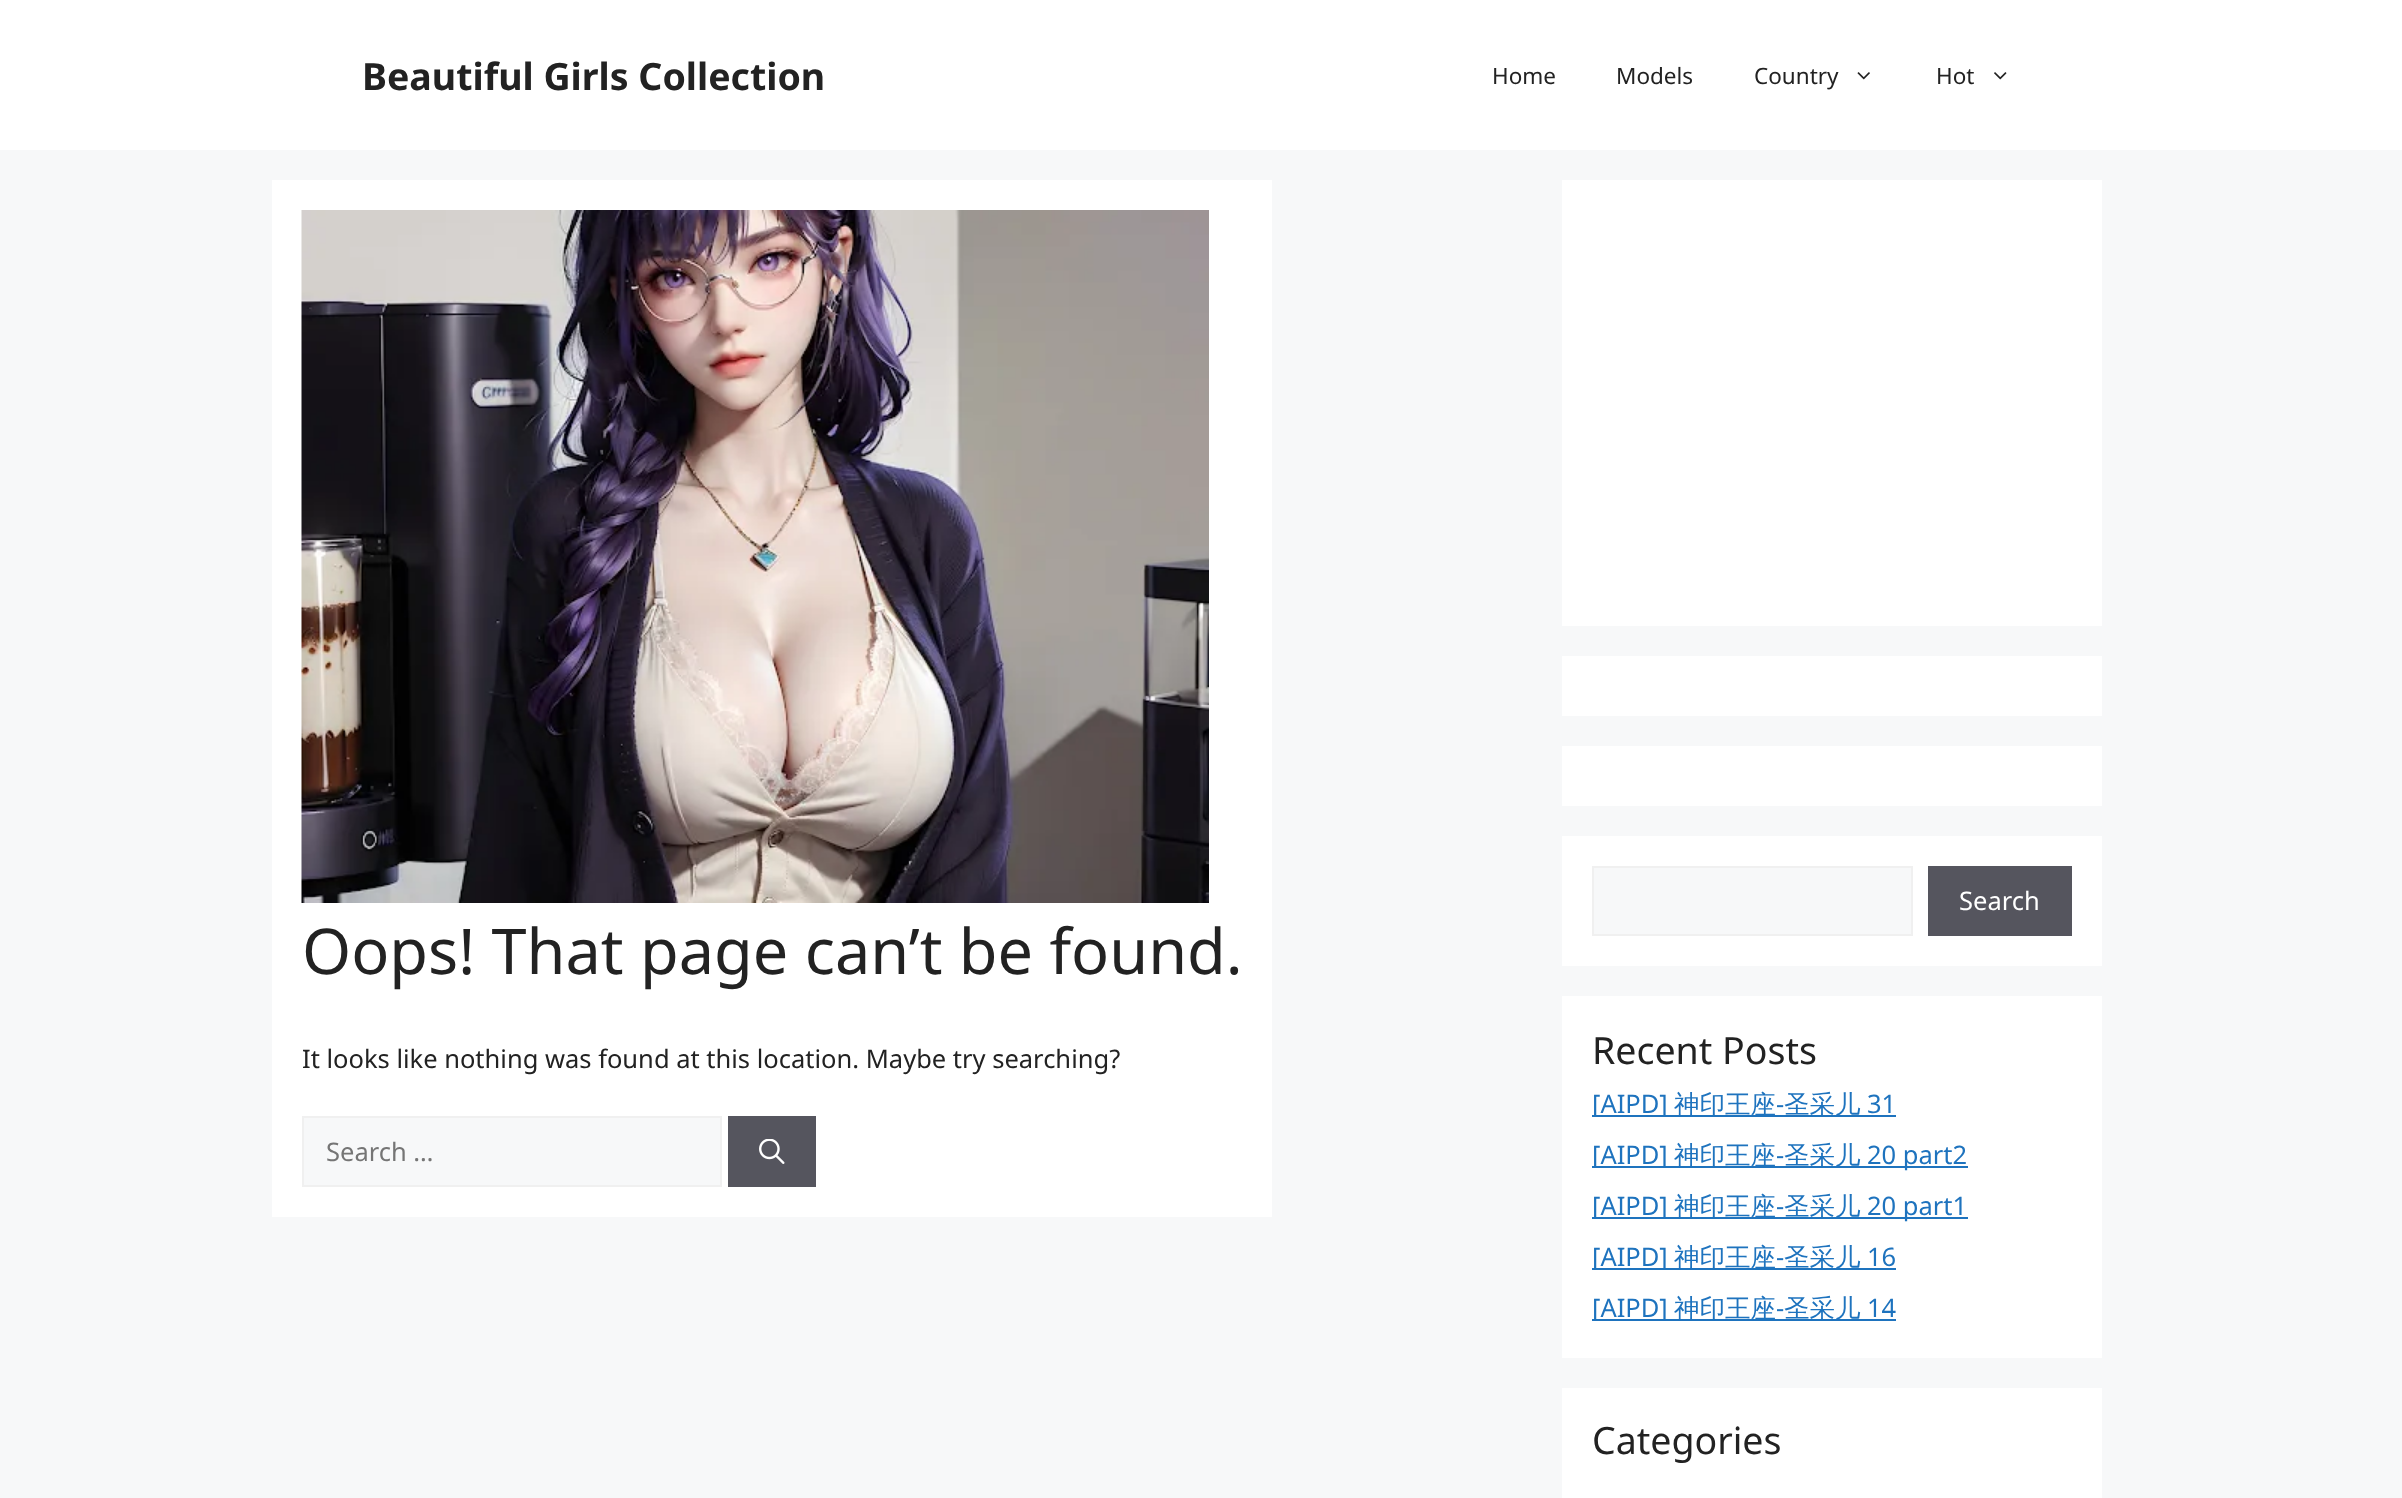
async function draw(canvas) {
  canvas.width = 2402;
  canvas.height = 1498;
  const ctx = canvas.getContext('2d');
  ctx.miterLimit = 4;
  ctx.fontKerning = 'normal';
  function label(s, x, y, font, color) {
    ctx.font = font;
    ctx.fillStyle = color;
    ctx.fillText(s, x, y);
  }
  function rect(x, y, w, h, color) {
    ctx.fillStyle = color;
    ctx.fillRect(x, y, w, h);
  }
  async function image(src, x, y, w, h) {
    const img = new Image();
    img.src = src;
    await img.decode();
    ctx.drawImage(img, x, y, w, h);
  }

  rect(0, 0, 2402, 1498, '#f7f8f9');
  rect(0, 0, 2402, 150, '#fff');
  label('Beautiful Girls Collection', 362, 90, 'bold 37.5px Noto Sans', '#222');
  label('Home', 1492, 84, '22.5px Noto Sans', '#222');
  label('Models', 1616, 84, '22.5px Noto Sans', '#222');
  label('Country', 1754, 84, '22.5px Noto Sans', '#222');
  await image('assets/img1.png', 1857, 72, 13, 8);
  label('Hot', 1936, 84, '22.5px Noto Sans', '#222');
  await image('assets/img2.png', 1994, 72, 13, 8);
  rect(272, 180, 1000, 1037, '#fff');
  await image('assets/img3.png', 301, 210, 908, 693);
  label('Oops! That page can’t be found.', 302, 974, '63px Noto Sans', '#222');
  label('It looks like nothing was found at this location. Maybe try searching?', 302, 1068, '25.5px Noto Sans', '#222');
  ctx.fillStyle = '#f7f8f9';
  ctx.beginPath();
  ctx.rect(303, 1117, 418, 69);
  ctx.fill();
  ctx.strokeStyle = '#f0f0f0';
  ctx.lineWidth = 2;
  ctx.stroke();
  label('Search …', 326, 1161, '25.5px Noto Sans', '#757575');
  rect(728, 1116, 88, 71, '#55555e');
  await image('assets/img4.png', 759, 1139, 26, 25);
  rect(1562, 180, 540, 446, '#fff');
  rect(1562, 656, 540, 60, '#fff');
  rect(1562, 746, 540, 60, '#fff');
  rect(1562, 836, 540, 130, '#fff');
  ctx.fillStyle = '#f7f8f9';
  ctx.beginPath();
  ctx.rect(1593, 867, 319, 68);
  ctx.fill();
  ctx.stroke();
  rect(1928, 866, 144, 70, '#55555e');
  label('Search', 1959, 910, '25.5px Noto Sans', '#fff');
  rect(1562, 996, 540, 362, '#fff');
  label('Recent Posts', 1592, 1064, '37.5px Noto Sans', '#222');
  rect(1592, 1115, 304, 2, '#1e73be');
  label('[AIPD]', 1592, 1113, '25.5px Noto Sans', '#1e73be');
  label('神印王座', 1674, 1113, '500 25.5px WenQuanYi Zen Hei', '#1e73be');
  label('-', 1776, 1113, '25.5px Noto Sans', '#1e73be');
  label('圣采儿', 1784, 1113, '500 25.5px WenQuanYi Zen Hei', '#1e73be');
  label('31', 1867, 1113, '25.5px Noto Sans', '#1e73be');
  rect(1592, 1166, 376, 2, '#1e73be');
  label('[AIPD]', 1592, 1164, '25.5px Noto Sans', '#1e73be');
  label('神印王座', 1674, 1164, '500 25.5px WenQuanYi Zen Hei', '#1e73be');
  label('-', 1776, 1164, '25.5px Noto Sans', '#1e73be');
  label('圣采儿', 1784, 1164, '500 25.5px WenQuanYi Zen Hei', '#1e73be');
  label('20 part2', 1867, 1164, '25.5px Noto Sans', '#1e73be');
  rect(1592, 1217, 376, 2, '#1e73be');
  label('[AIPD]', 1592, 1215, '25.5px Noto Sans', '#1e73be');
  label('神印王座', 1674, 1215, '500 25.5px WenQuanYi Zen Hei', '#1e73be');
  label('-', 1776, 1215, '25.5px Noto Sans', '#1e73be');
  label('圣采儿', 1784, 1215, '500 25.5px WenQuanYi Zen Hei', '#1e73be');
  label('20 part1', 1867, 1215, '25.5px Noto Sans', '#1e73be');
  rect(1592, 1268, 304, 2, '#1e73be');
  label('[AIPD]', 1592, 1266, '25.5px Noto Sans', '#1e73be');
  label('神印王座', 1674, 1266, '500 25.5px WenQuanYi Zen Hei', '#1e73be');
  label('-', 1776, 1266, '25.5px Noto Sans', '#1e73be');
  label('圣采儿', 1784, 1266, '500 25.5px WenQuanYi Zen Hei', '#1e73be');
  label('16', 1867, 1266, '25.5px Noto Sans', '#1e73be');
  rect(1592, 1319, 304, 2, '#1e73be');
  label('[AIPD]', 1592, 1317, '25.5px Noto Sans', '#1e73be');
  label('神印王座', 1674, 1317, '500 25.5px WenQuanYi Zen Hei', '#1e73be');
  label('-', 1776, 1317, '25.5px Noto Sans', '#1e73be');
  label('圣采儿', 1784, 1317, '500 25.5px WenQuanYi Zen Hei', '#1e73be');
  label('14', 1867, 1317, '25.5px Noto Sans', '#1e73be');
  rect(1562, 1388, 540, 110, '#fff');
  label('Categories', 1592, 1454, '37.5px Noto Sans', '#222');
}

draw(document.querySelector('canvas'));
